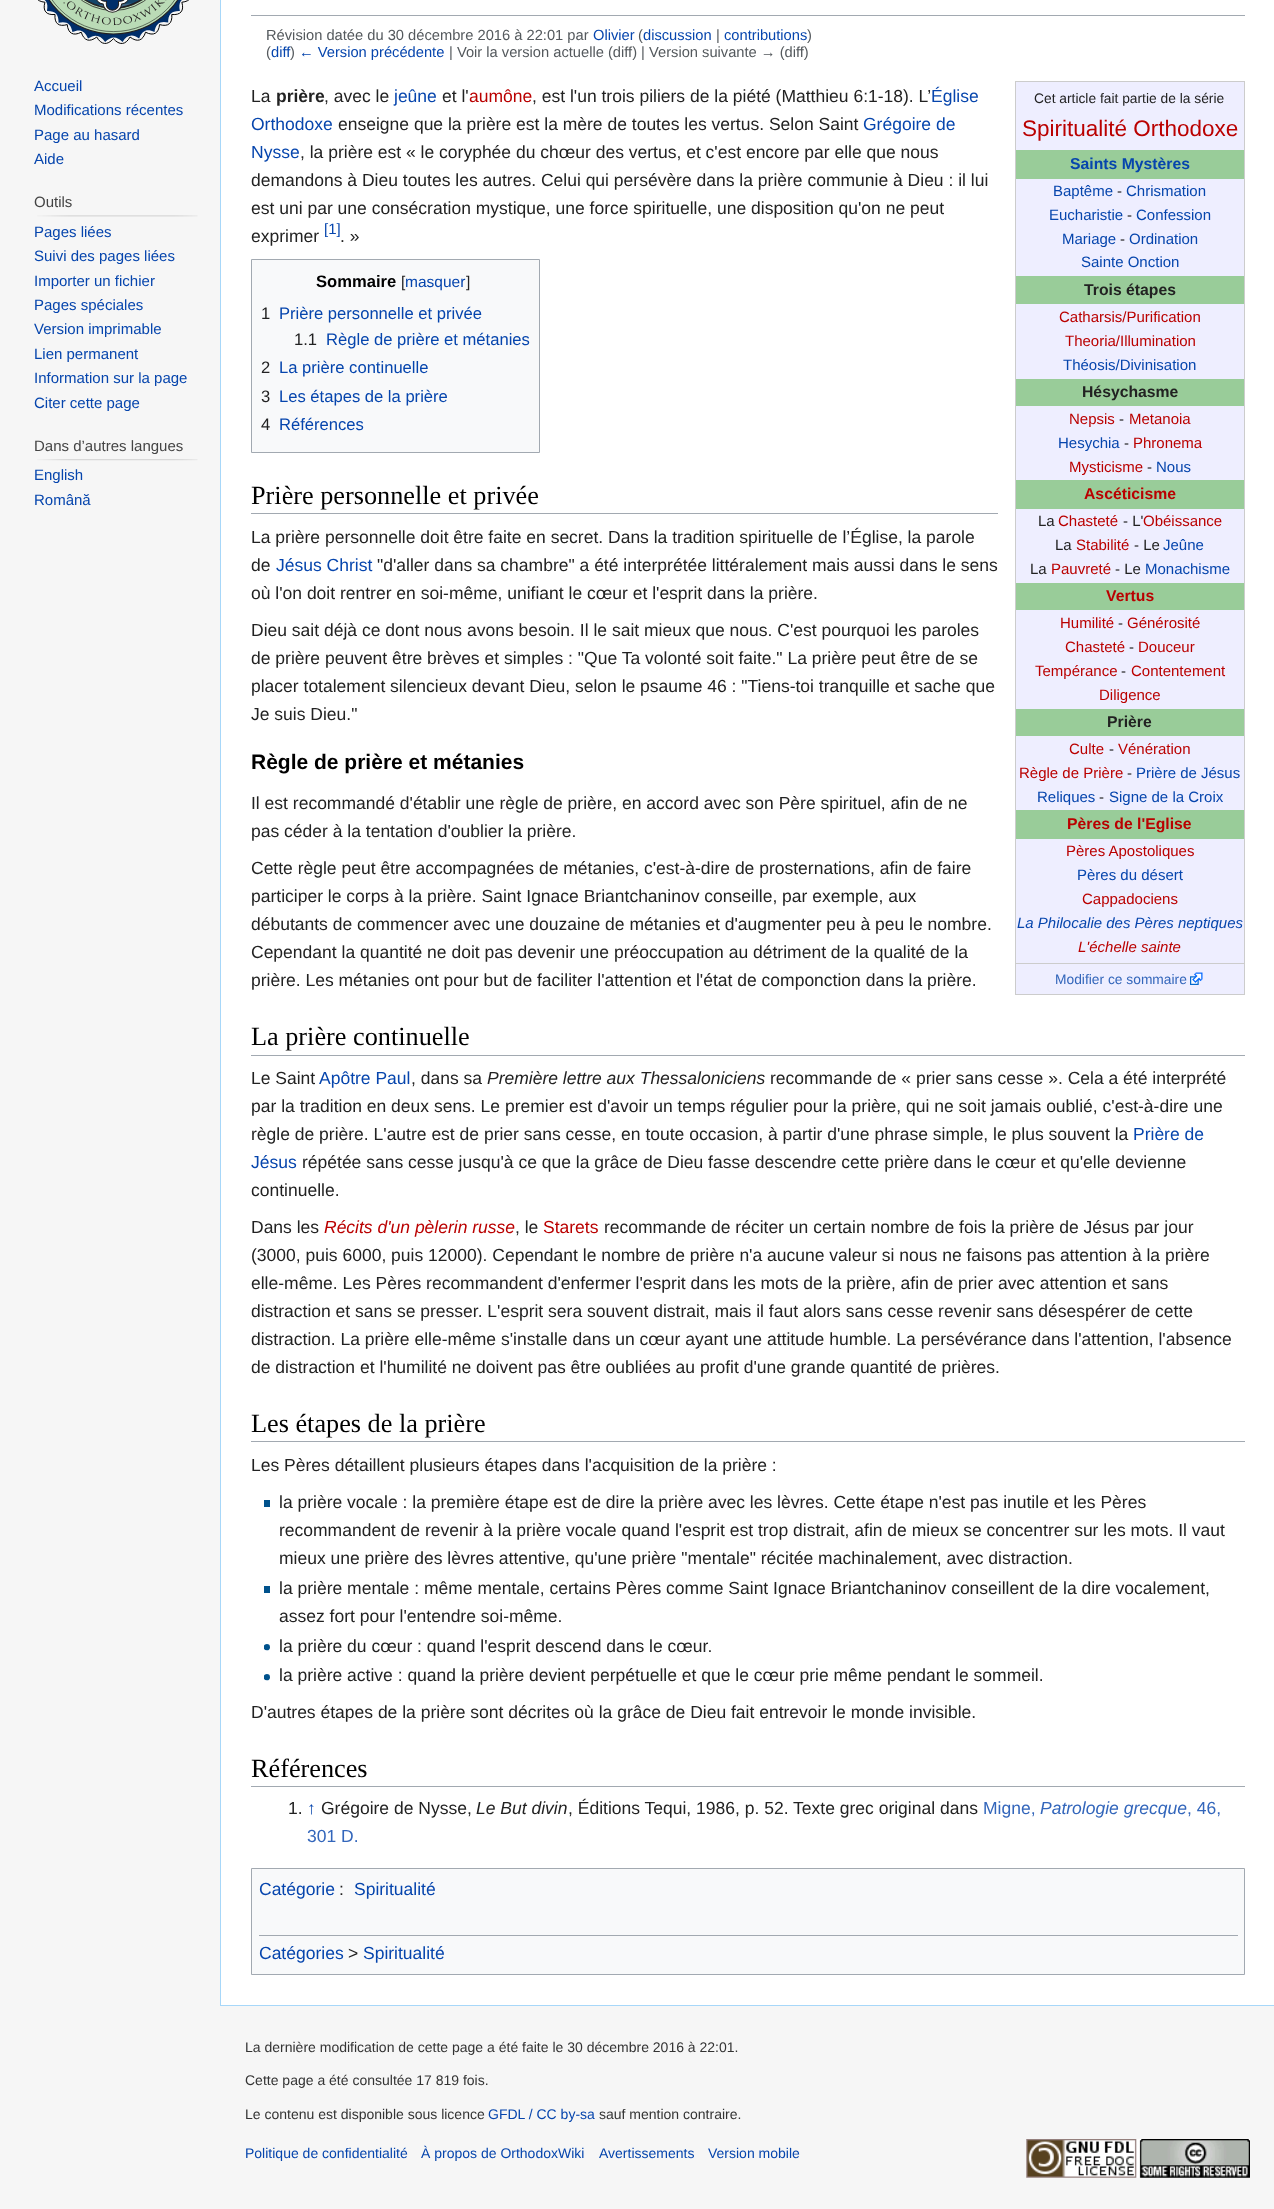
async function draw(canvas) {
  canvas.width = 1274;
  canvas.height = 2209;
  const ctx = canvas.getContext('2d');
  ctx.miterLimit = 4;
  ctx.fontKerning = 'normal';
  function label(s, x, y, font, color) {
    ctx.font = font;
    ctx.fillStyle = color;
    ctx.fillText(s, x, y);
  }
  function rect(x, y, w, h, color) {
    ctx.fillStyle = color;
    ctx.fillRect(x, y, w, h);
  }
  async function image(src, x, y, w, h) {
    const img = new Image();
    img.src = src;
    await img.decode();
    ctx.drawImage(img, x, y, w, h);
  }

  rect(0, 0, 1274, 2209, '#f6f6f6');
  await image('assets/img1.png', 38, 0, 151, 44);
  label('Accueil', 34, 91, '15px Liberation Sans', '#0645ad');
  label('Modifications récentes', 34, 115, '15px Liberation Sans', '#0645ad');
  label('Page au hasard', 34, 140, '15px Liberation Sans', '#0645ad');
  label('Aide', 34, 164, '15px Liberation Sans', '#0645ad');
  label('Outils', 34, 207, '15px Liberation Sans', '#444');
  await image('assets/img2.png', 37, 215, 161, 2);
  label('Pages liées', 34, 237, '15px Liberation Sans', '#0645ad');
  label('Suivi des pages liées', 34, 261, '15px Liberation Sans', '#0645ad');
  label('Importer un fichier', 34, 286, '15px Liberation Sans', '#0645ad');
  label('Pages spéciales', 34, 310, '15px Liberation Sans', '#0645ad');
  label('Version imprimable', 34, 334, '15px Liberation Sans', '#0645ad');
  label('Lien permanent', 34, 359, '15px Liberation Sans', '#0645ad');
  label('Information sur la page', 34, 383, '15px Liberation Sans', '#0645ad');
  label('Citer cette page', 34, 408, '15px Liberation Sans', '#0645ad');
  label('Dans d’autres langues', 34, 451, '15px Liberation Sans', '#444');
  await image('assets/img3.png', 37, 459, 161, 2);
  label('English', 34, 480, '15px Liberation Sans', '#0645ad');
  label('Română', 34, 505, '15px Liberation Sans', '#0645ad');
  rect(221, 0, 1053, 2005, '#fff');
  rect(220, 2005, 1054, 1, '#a7d7f9');
  rect(220, 0, 1, 2006, '#a7d7f9');
  rect(251, 15, 994, 1, '#a2a9b1');
  label('Révision datée du 30 décembre 2016 à 22:01 par', 266, 40, '14.7px Liberation Sans', '#54595d');
  label('Olivier', 593, 40, '14.7px Liberation Sans', '#0645ad');
  label('(', 638, 40, '14.7px Liberation Sans', '#54595d');
  label('discussion', 643, 40, '14.7px Liberation Sans', '#0645ad');
  label('|', 716, 40, '14.7px Liberation Sans', '#54595d');
  label('contributions', 724, 40, '14.7px Liberation Sans', '#0645ad');
  label(')', 807, 40, '14.7px Liberation Sans', '#54595d');
  label('(', 266, 57, '14.7px Liberation Sans', '#54595d');
  label('diff', 271, 57, '14.7px Liberation Sans', '#0645ad');
  label(')', 290, 57, '14.7px Liberation Sans', '#54595d');
  label('← Version précédente', 299, 57, '14.7px Liberation Sans', '#0645ad');
  label('| Voir la version actuelle (diff) | Version suivante → (diff)', 449, 57, '14.7px Liberation Sans', '#54595d');
  label('La', 251, 102, '17.5px Liberation Sans', '#222');
  label('prière', 276, 102, 'bold 17.5px Liberation Sans', '#222');
  label(', avec le', 324, 102, '17.5px Liberation Sans', '#222');
  label('jeûne', 394, 102, '17.5px Liberation Sans', '#0645ad');
  label('et l\'', 442, 102, '17.5px Liberation Sans', '#222');
  label('aumône', 469, 102, '17.5px Liberation Sans', '#ba0000');
  label(', est l\'un trois piliers de la piété (Matthieu 6:1-18). L’', 532, 102, '17.5px Liberation Sans', '#222');
  label('Église', 931, 102, '17.5px Liberation Sans', '#0645ad');
  label('Orthodoxe', 251, 130, '17.5px Liberation Sans', '#0645ad');
  label('enseigne que la prière est la mère de toutes les vertus. Selon Saint', 338, 130, '17.5px Liberation Sans', '#222');
  label('Grégoire de', 863, 130, '17.5px Liberation Sans', '#0645ad');
  label('Nysse', 251, 158, '17.5px Liberation Sans', '#0645ad');
  label(', la prière est « le coryphée du chœur des vertus, et c\'est encore par elle que nous', 300, 158, '17.5px Liberation Sans', '#222');
  label('demandons à Dieu toutes les autres. Celui qui persévère dans la prière communie à Dieu : il lui', 251, 186, '17.5px Liberation Sans', '#222');
  label('est uni par une consécration mystique, une force spirituelle, une disposition qu\'on ne peut', 251, 214, '17.5px Liberation Sans', '#222');
  label('exprimer', 251, 242, '17.5px Liberation Sans', '#222');
  label('[1]', 324, 234, '15px Liberation Sans', '#0645ad');
  label('. »', 340, 242, '17.5px Liberation Sans', '#222');
  rect(1016, 82, 228, 912, '#eef');
  rect(1015, 81, 230, 1, '#ccc');
  rect(1244, 81, 1, 914, '#ccc');
  rect(1015, 994, 230, 1, '#ccc');
  rect(1015, 81, 1, 914, '#ccc');
  label('Cet article fait partie de la série', 1034, 103, '13.8px Liberation Sans', '#222');
  label('Spiritualité Orthodoxe', 1022, 136, '22.5px Liberation Sans', '#ba0000');
  rect(1016, 150, 228, 29, '#9c9');
  label('Saints Mystères', 1070, 169, 'bold 15.75px Liberation Sans', '#0645ad');
  label('Baptême', 1053, 196, '15px Liberation Sans', '#0645ad');
  label('-', 1117, 196, '15px Liberation Sans', '#222');
  label('Chrismation', 1126, 196, '15px Liberation Sans', '#0645ad');
  label('Eucharistie', 1049, 220, '15px Liberation Sans', '#0645ad');
  label('-', 1127, 220, '15px Liberation Sans', '#222');
  label('Confession', 1136, 220, '15px Liberation Sans', '#0645ad');
  label('Mariage', 1062, 244, '15px Liberation Sans', '#0645ad');
  label('-', 1120, 244, '15px Liberation Sans', '#222');
  label('Ordination', 1129, 244, '15px Liberation Sans', '#0645ad');
  label('Sainte Onction', 1081, 267, '15px Liberation Sans', '#0645ad');
  rect(1016, 276, 228, 28, '#9c9');
  label('Trois étapes', 1084, 295, 'bold 15.75px Liberation Sans', '#222');
  label('Catharsis/Purification', 1059, 322, '15px Liberation Sans', '#ba0000');
  label('Theoria/Illumination', 1065, 346, '15px Liberation Sans', '#ba0000');
  label('Théosis/Divinisation', 1063, 370, '15px Liberation Sans', '#0645ad');
  rect(1016, 379, 228, 27, '#9c9');
  label('Hésychasme', 1082, 397, 'bold 15.75px Liberation Sans', '#222');
  label('Nepsis', 1069, 424, '15px Liberation Sans', '#ba0000');
  label('-', 1119, 424, '15px Liberation Sans', '#222');
  label('Metanoia', 1129, 424, '15px Liberation Sans', '#ba0000');
  label('Hesychia', 1058, 448, '15px Liberation Sans', '#0645ad');
  label('-', 1124, 448, '15px Liberation Sans', '#222');
  label('Phronema', 1133, 448, '15px Liberation Sans', '#ba0000');
  label('Mysticisme', 1069, 472, '15px Liberation Sans', '#ba0000');
  label('-', 1147, 472, '15px Liberation Sans', '#222');
  label('Nous', 1156, 472, '15px Liberation Sans', '#0645ad');
  rect(1016, 480, 228, 29, '#9c9');
  label('Ascéticisme', 1084, 499, 'bold 15.75px Liberation Sans', '#ba0000');
  label('La', 1038, 526, '15px Liberation Sans', '#222');
  label('Chasteté', 1058, 526, '15px Liberation Sans', '#ba0000');
  label('- L\'', 1123, 526, '15px Liberation Sans', '#222');
  label('Obéissance', 1143, 526, '15px Liberation Sans', '#ba0000');
  label('La', 1055, 550, '15px Liberation Sans', '#222');
  label('Stabilité', 1076, 550, '15px Liberation Sans', '#ba0000');
  label('- Le', 1134, 550, '15px Liberation Sans', '#222');
  label('Jeûne', 1163, 550, '15px Liberation Sans', '#0645ad');
  label('La', 1030, 574, '15px Liberation Sans', '#222');
  label('Pauvreté', 1051, 574, '15px Liberation Sans', '#ba0000');
  label('- Le', 1115, 574, '15px Liberation Sans', '#222');
  label('Monachisme', 1145, 574, '15px Liberation Sans', '#0645ad');
  rect(1016, 583, 228, 27, '#9c9');
  label('Vertus', 1106, 601, 'bold 15.75px Liberation Sans', '#ba0000');
  label('Humilité', 1060, 628, '15px Liberation Sans', '#ba0000');
  label('-', 1118, 628, '15px Liberation Sans', '#222');
  label('Générosité', 1127, 628, '15px Liberation Sans', '#ba0000');
  label('Chasteté', 1065, 652, '15px Liberation Sans', '#ba0000');
  label('-', 1129, 652, '15px Liberation Sans', '#222');
  label('Douceur', 1138, 652, '15px Liberation Sans', '#ba0000');
  label('Tempérance', 1035, 676, '15px Liberation Sans', '#ba0000');
  label('-', 1121, 676, '15px Liberation Sans', '#222');
  label('Contentement', 1131, 676, '15px Liberation Sans', '#ba0000');
  label('Diligence', 1099, 700, '15px Liberation Sans', '#ba0000');
  rect(1016, 709, 228, 27, '#9c9');
  label('Prière', 1107, 727, 'bold 15.75px Liberation Sans', '#222');
  label('Culte', 1069, 754, '15px Liberation Sans', '#ba0000');
  label('-', 1109, 754, '15px Liberation Sans', '#222');
  label('Vénération', 1118, 754, '15px Liberation Sans', '#ba0000');
  label('Règle de Prière', 1019, 778, '15px Liberation Sans', '#ba0000');
  label('-', 1127, 778, '15px Liberation Sans', '#222');
  label('Prière de Jésus', 1136, 778, '15px Liberation Sans', '#0645ad');
  label('Reliques', 1037, 802, '15px Liberation Sans', '#0645ad');
  label('-', 1099, 802, '15px Liberation Sans', '#222');
  label('Signe de la Croix', 1109, 802, '15px Liberation Sans', '#0645ad');
  rect(1016, 810, 228, 29, '#9c9');
  label('Pères de l\'Eglise', 1067, 829, 'bold 15.75px Liberation Sans', '#ba0000');
  label('Pères Apostoliques', 1066, 856, '15px Liberation Sans', '#ba0000');
  label('Pères du désert', 1077, 880, '15px Liberation Sans', '#0645ad');
  label('Cappadociens', 1082, 904, '15px Liberation Sans', '#ba0000');
  label('La Philocalie des Pères neptiques', 1017, 928, 'italic 15px Liberation Sans', '#0645ad');
  label('L\'échelle sainte', 1078, 952, 'italic 15px Liberation Sans', '#ba0000');
  rect(1015, 963, 230, 1, '#ccc');
  label('Modifier ce sommaire', 1055, 984, '13.8px Liberation Sans', '#36b');
  await image('assets/img4.png', 1190, 972, 13, 13);
  ctx.fillStyle = '#f8f9fa';
  ctx.beginPath();
  ctx.rect(251.5, 259.5, 288, 193);
  ctx.fill();
  ctx.strokeStyle = '#a2a9b1';
  ctx.stroke();
  label('Sommaire', 316, 287, 'bold 16.6px Liberation Sans', '#000');
  label('[', 401, 287, '15.5px Liberation Sans', '#222');
  label('masquer', 405, 287, '15.5px Liberation Sans', '#0645ad');
  label(']', 466, 287, '15.5px Liberation Sans', '#222');
  label('1', 261, 319, '16.6px Liberation Sans', '#222');
  label('Prière personnelle et privée', 279, 319, '16.6px Liberation Sans', '#0645ad');
  label('1.1', 294, 345, '16.6px Liberation Sans', '#222');
  label('Règle de prière et métanies', 326, 345, '16.6px Liberation Sans', '#0645ad');
  label('2', 261, 373, '16.6px Liberation Sans', '#222');
  label('La prière continuelle', 279, 373, '16.6px Liberation Sans', '#0645ad');
  label('3', 261, 402, '16.6px Liberation Sans', '#222');
  label('Les étapes de la prière', 279, 402, '16.6px Liberation Sans', '#0645ad');
  label('4', 261, 430, '16.6px Liberation Sans', '#222');
  label('Références', 279, 430, '16.6px Liberation Sans', '#0645ad');
  rect(251, 513, 747, 1, '#a2a9b1');
  label('Prière personnelle et privée', 251, 504, '26.25px Liberation Serif', '#000');
  label('La prière personnelle doit être faite en secret. Dans la tradition spirituelle de l’Église, la parole', 251, 543, '17.5px Liberation Sans', '#222');
  label('de', 251, 571, '17.5px Liberation Sans', '#222');
  label('Jésus Christ', 276, 571, '17.5px Liberation Sans', '#0645ad');
  label('"d\'aller dans sa chambre" a été interprétée littéralement mais aussi dans le sens', 377, 571, '17.5px Liberation Sans', '#222');
  label('où l\'on doit rentrer en soi-même, unifiant le cœur et l\'esprit dans la prière.', 251, 599, '17.5px Liberation Sans', '#222');
  label('Dieu sait déjà ce dont nous avons besoin. Il le sait mieux que nous. C\'est pourquoi les paroles', 251, 636, '17.5px Liberation Sans', '#222');
  label('de prière peuvent être brèves et simples : "Que Ta volonté soit faite." La prière peut être de se', 251, 664, '17.5px Liberation Sans', '#222');
  label('placer totalement silencieux devant Dieu, selon le psaume 46 : "Tiens-toi tranquille et sache que', 251, 692, '17.5px Liberation Sans', '#222');
  label('Je suis Dieu."', 251, 720, '17.5px Liberation Sans', '#222');
  label('Règle de prière et métanies', 251, 769, 'bold 21px Liberation Sans', '#000');
  label('Il est recommandé d\'établir une règle de prière, en accord avec son Père spirituel, afin de ne', 251, 809, '17.5px Liberation Sans', '#222');
  label('pas céder à la tentation d\'oublier la prière.', 251, 837, '17.5px Liberation Sans', '#222');
  label('Cette règle peut être accompagnées de métanies, c\'est-à-dire de prosternations, afin de faire', 251, 874, '17.5px Liberation Sans', '#222');
  label('participer le corps à la prière. Saint Ignace Briantchaninov conseille, par exemple, aux', 251, 902, '17.5px Liberation Sans', '#222');
  label('débutants de commencer avec une douzaine de métanies et d\'augmenter peu à peu le nombre.', 251, 930, '17.5px Liberation Sans', '#222');
  label('Cependant la quantité ne doit pas devenir une préoccupation au détriment de la qualité de la', 251, 958, '17.5px Liberation Sans', '#222');
  label('prière. Les métanies ont pour but de faciliter l\'attention et l\'état de componction dans la prière.', 251, 986, '17.5px Liberation Sans', '#222');
  rect(251, 1055, 994, 1, '#a2a9b1');
  label('La prière continuelle', 251, 1045, '26.25px Liberation Serif', '#000');
  label('Le Saint', 251, 1084, '17.5px Liberation Sans', '#222');
  label('Apôtre Paul', 319, 1084, '17.5px Liberation Sans', '#0645ad');
  label(', dans sa', 411, 1084, '17.5px Liberation Sans', '#222');
  label('Première lettre aux Thessaloniciens', 487, 1084, 'italic 17.5px Liberation Sans', '#222');
  label('recommande de « prier sans cesse ». Cela a été interprété', 770, 1084, '17.5px Liberation Sans', '#222');
  label('par la tradition en deux sens. Le premier est d\'avoir un temps régulier pour la prière, qui ne soit jamais oublié, c\'est-à-dire une', 251, 1112, '17.5px Liberation Sans', '#222');
  label('règle de prière. L\'autre est de prier sans cesse, en toute occasion, à partir d\'une phrase simple, le plus souvent la', 251, 1140, '17.5px Liberation Sans', '#222');
  label('Prière de', 1133, 1140, '17.5px Liberation Sans', '#0645ad');
  label('Jésus', 251, 1168, '17.5px Liberation Sans', '#0645ad');
  label('répétée sans cesse jusqu\'à ce que la grâce de Dieu fasse descendre cette prière dans le cœur et qu\'elle devienne', 302, 1168, '17.5px Liberation Sans', '#222');
  label('continuelle.', 251, 1196, '17.5px Liberation Sans', '#222');
  label('Dans les', 251, 1233, '17.5px Liberation Sans', '#222');
  label('Récits d\'un pèlerin russe', 324, 1233, 'italic 17.5px Liberation Sans', '#ba0000');
  label(', le', 515, 1233, '17.5px Liberation Sans', '#222');
  label('Starets', 543, 1233, '17.5px Liberation Sans', '#ba0000');
  label('recommande de réciter un certain nombre de fois la prière de Jésus par jour', 604, 1233, '17.5px Liberation Sans', '#222');
  label('(3000, puis 6000, puis 12000). Cependant le nombre de prière n\'a aucune valeur si nous ne faisons pas attention à la prière', 251, 1261, '17.5px Liberation Sans', '#222');
  label('elle-même. Les Pères recommandent d\'enfermer l\'esprit dans les mots de la prière, afin de prier avec attention et sans', 251, 1289, '17.5px Liberation Sans', '#222');
  label('distraction et sans se presser. L\'esprit sera souvent distrait, mais il faut alors sans cesse revenir sans désespérer de cette', 251, 1317, '17.5px Liberation Sans', '#222');
  label('distraction. La prière elle-même s\'installe dans un cœur ayant une attitude humble. La persévérance dans l\'attention, l\'absence', 251, 1345, '17.5px Liberation Sans', '#222');
  label('de distraction et l\'humilité ne doivent pas être oubliées au profit d\'une grande quantité de prières.', 251, 1373, '17.5px Liberation Sans', '#222');
  rect(251, 1441, 994, 1, '#a2a9b1');
  label('Les étapes de la prière', 251, 1432, '26.25px Liberation Serif', '#000');
  label('Les Pères détaillent plusieurs étapes dans l\'acquisition de la prière :', 251, 1471, '17.5px Liberation Sans', '#222');
  rect(264, 1500, 6, 7, '#00528c');
  label('la prière vocale : la première étape est de dire la prière avec les lèvres. Cette étape n\'est pas inutile et les Pères', 279, 1508, '17.5px Liberation Sans', '#222');
  label('recommandent de revenir à la prière vocale quand l\'esprit est trop distrait, afin de mieux se concentrer sur les mots. Il vaut', 279, 1536, '17.5px Liberation Sans', '#222');
  label('mieux une prière des lèvres attentive, qu\'une prière "mentale" récitée machinalement, avec distraction.', 279, 1564, '17.5px Liberation Sans', '#222');
  rect(264, 1586, 6, 7, '#00528c');
  label('la prière mentale : même mentale, certains Pères comme Saint Ignace Briantchaninov conseillent de la dire vocalement,', 279, 1594, '17.5px Liberation Sans', '#222');
  label('assez fort pour l\'entendre soi-même.', 279, 1622, '17.5px Liberation Sans', '#222');
  await image('assets/img5.png', 264, 1644, 6, 7);
  label('la prière du cœur : quand l\'esprit descend dans le cœur.', 279, 1652, '17.5px Liberation Sans', '#222');
  await image('assets/img5.png', 264, 1674, 6, 7);
  label('la prière active : quand la prière devient perpétuelle et que le cœur prie même pendant le sommeil.', 279, 1681, '17.5px Liberation Sans', '#222');
  label('D\'autres étapes de la prière sont décrites où la grâce de Dieu fait entrevoir le monde invisible.', 251, 1718, '17.5px Liberation Sans', '#222');
  rect(251, 1786, 994, 1, '#a2a9b1');
  label('Références', 251, 1777, '26.25px Liberation Serif', '#000');
  label('1.', 288, 1814, '17.5px Liberation Sans', '#222');
  label('↑', 307, 1814, '17.5px Liberation Sans', '#0645ad');
  label('Grégoire de Nysse,', 321, 1814, '17.5px Liberation Sans', '#222');
  label('Le But divin', 476, 1814, 'italic 17.5px Liberation Sans', '#222');
  label(', Éditions Tequi, 1986, p. 52. Texte grec original dans', 568, 1814, '17.5px Liberation Sans', '#222');
  label('Migne,', 983, 1814, '17.5px Liberation Sans', '#36b');
  label('Patrologie grecque', 1040, 1814, 'italic 17.5px Liberation Sans', '#36b');
  label(', 46,', 1187, 1814, '17.5px Liberation Sans', '#36b');
  label('301 D.', 307, 1842, '17.5px Liberation Sans', '#36b');
  ctx.fillStyle = '#f8f9fa';
  ctx.beginPath();
  ctx.rect(251.5, 1868.5, 993, 106);
  ctx.fill();
  ctx.stroke();
  label('Catégorie', 259, 1895, '17.5px Liberation Sans', '#0645ad');
  label(':', 339, 1895, '17.5px Liberation Sans', '#222');
  label('Spiritualité', 354, 1895, '17.5px Liberation Sans', '#0645ad');
  rect(259, 1935, 979, 1, '#a2a9b1');
  label('Catégories', 259, 1959, '17.5px Liberation Sans', '#0645ad');
  label('>', 348, 1959, '17.5px Liberation Sans', '#222');
  label('Spiritualité', 363, 1959, '17.5px Liberation Sans', '#0645ad');
  label('La dernière modification de cette page a été faite le 30 décembre 2016 à 22:01.', 245, 2052, '14px Liberation Sans', '#333');
  label('Cette page a été consultée 17 819 fois.', 245, 2085, '14px Liberation Sans', '#333');
  label('Le contenu est disponible sous licence', 245, 2119, '14px Liberation Sans', '#333');
  label('GFDL / CC by-sa', 488, 2119, '14px Liberation Sans', '#0645ad');
  label('sauf mention contraire.', 599, 2119, '14px Liberation Sans', '#333');
  label('Politique de confidentialité', 245, 2158, '14px Liberation Sans', '#0645ad');
  label('À propos de OrthodoxWiki', 421, 2158, '14px Liberation Sans', '#0645ad');
  label('Avertissements', 599, 2158, '14px Liberation Sans', '#0645ad');
  label('Version mobile', 708, 2158, '14px Liberation Sans', '#0645ad');
  await image('assets/img6.png', 1026, 2139, 224, 39);
}

draw(document.querySelector('canvas'));
